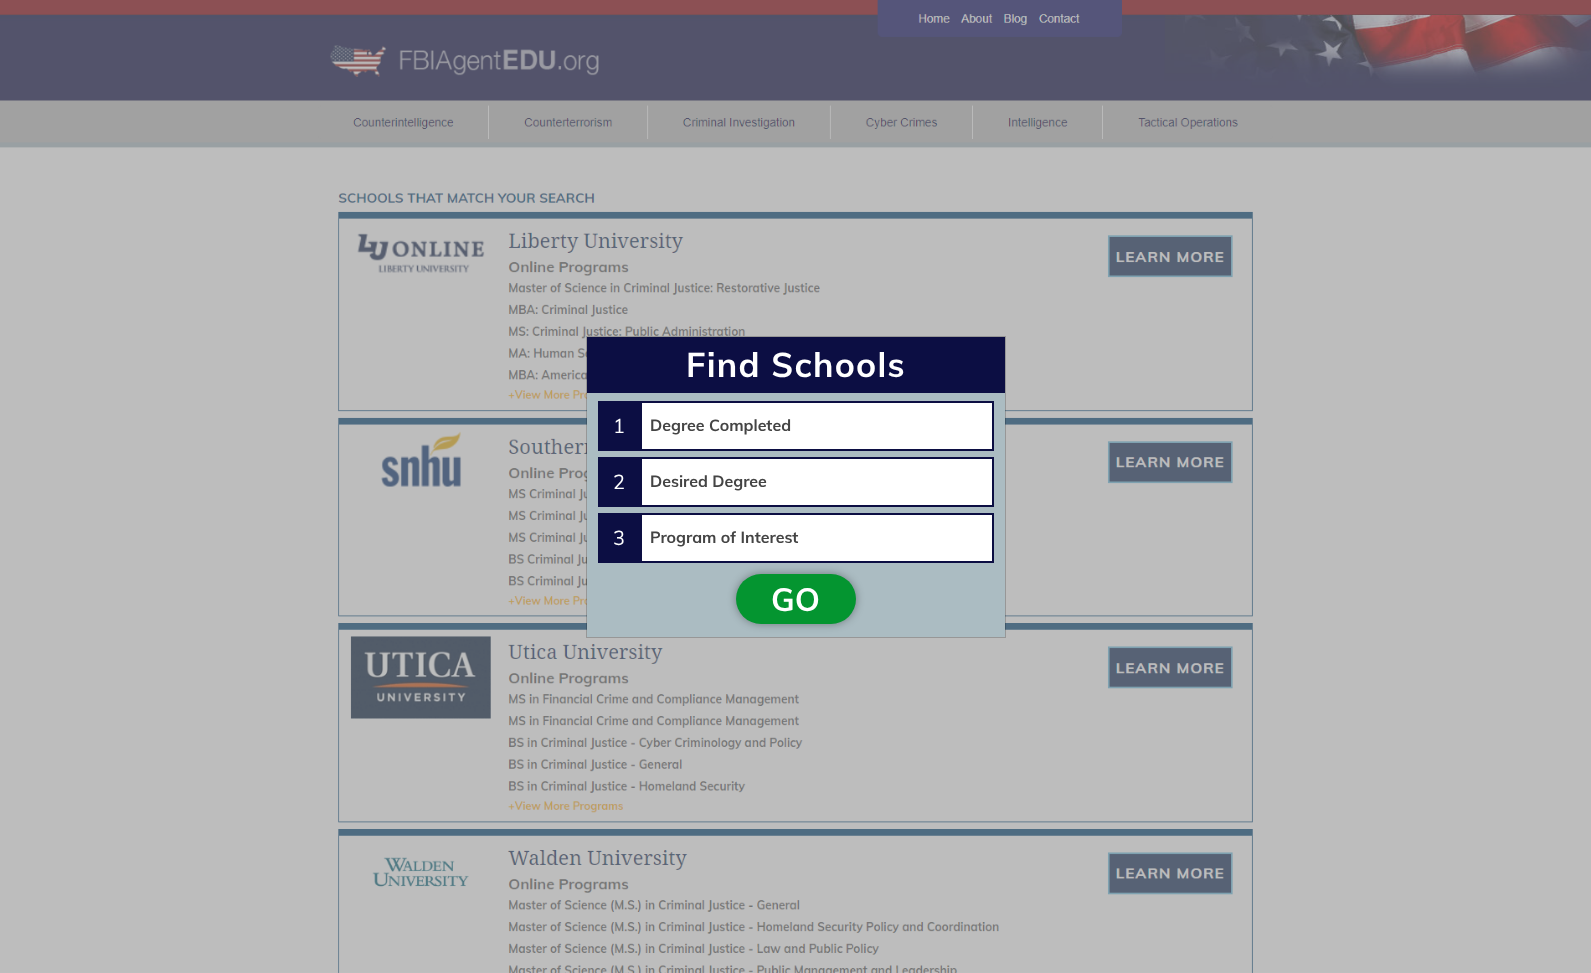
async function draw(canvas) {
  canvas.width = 1591;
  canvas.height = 973;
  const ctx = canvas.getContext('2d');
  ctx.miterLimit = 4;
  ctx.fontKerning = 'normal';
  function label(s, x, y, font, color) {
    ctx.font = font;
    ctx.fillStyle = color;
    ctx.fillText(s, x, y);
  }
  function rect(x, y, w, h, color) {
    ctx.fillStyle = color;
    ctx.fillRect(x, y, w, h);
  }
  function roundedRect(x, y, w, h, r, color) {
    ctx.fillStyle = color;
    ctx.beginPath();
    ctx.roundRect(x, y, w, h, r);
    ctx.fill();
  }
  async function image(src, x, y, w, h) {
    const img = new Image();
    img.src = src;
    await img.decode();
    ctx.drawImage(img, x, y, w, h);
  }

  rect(0, 0, 1591, 973, '#fff');
  await image('assets/img1.png', 0, 0, 1591, 973);
  rect(587, 393, 418, 244, '#abbcc2');
  ctx.strokeStyle = '#00000033';
  ctx.strokeRect(586.5, 336.5, 419, 301);
  rect(587, 337, 418, 56, '#0c0e43');
  ctx.letterSpacing = '1.25px';
  label('Find Schools', 686, 377, 'bold 34px Muli', '#fff');
  rect(598, 401, 42, 50, '#0c0e43');
  ctx.letterSpacing = '0px';
  label('1', 613, 433, '20px Muli', '#fff');
  ctx.beginPath();
  ctx.rect(641, 402, 352, 48);
  ctx.fill();
  ctx.strokeStyle = '#0c0e43';
  ctx.lineWidth = 2;
  ctx.stroke();
  label('Degree Completed', 650, 431, 'bold 16px Muli', '#444');
  rect(598, 457, 42, 50, '#0c0e43');
  label('2', 613, 489, '20px Muli', '#fff');
  ctx.beginPath();
  ctx.rect(641, 458, 352, 48);
  ctx.fill();
  ctx.stroke();
  label('Desired Degree', 650, 487, 'bold 16px Muli', '#444');
  rect(598, 513, 42, 50, '#0c0e43');
  label('3', 613, 545, '20px Muli', '#fff');
  ctx.beginPath();
  ctx.rect(641, 514, 352, 48);
  ctx.fill();
  ctx.stroke();
  label('Program of Interest', 650, 543, 'bold 16px Muli', '#444');
  ctx.fillStyle = '#00000059';
  ctx.filter = 'blur(4px)';
  ctx.beginPath();
  ctx.roundRect(736, 574, 120, 50, 25);
  ctx.fill();
  ctx.filter = 'none';
  roundedRect(736, 574, 120, 50, 25, '#049530');
  label('GO', 771, 611, 'bold 32px Muli', '#fff');
}

draw(document.querySelector('canvas'));
